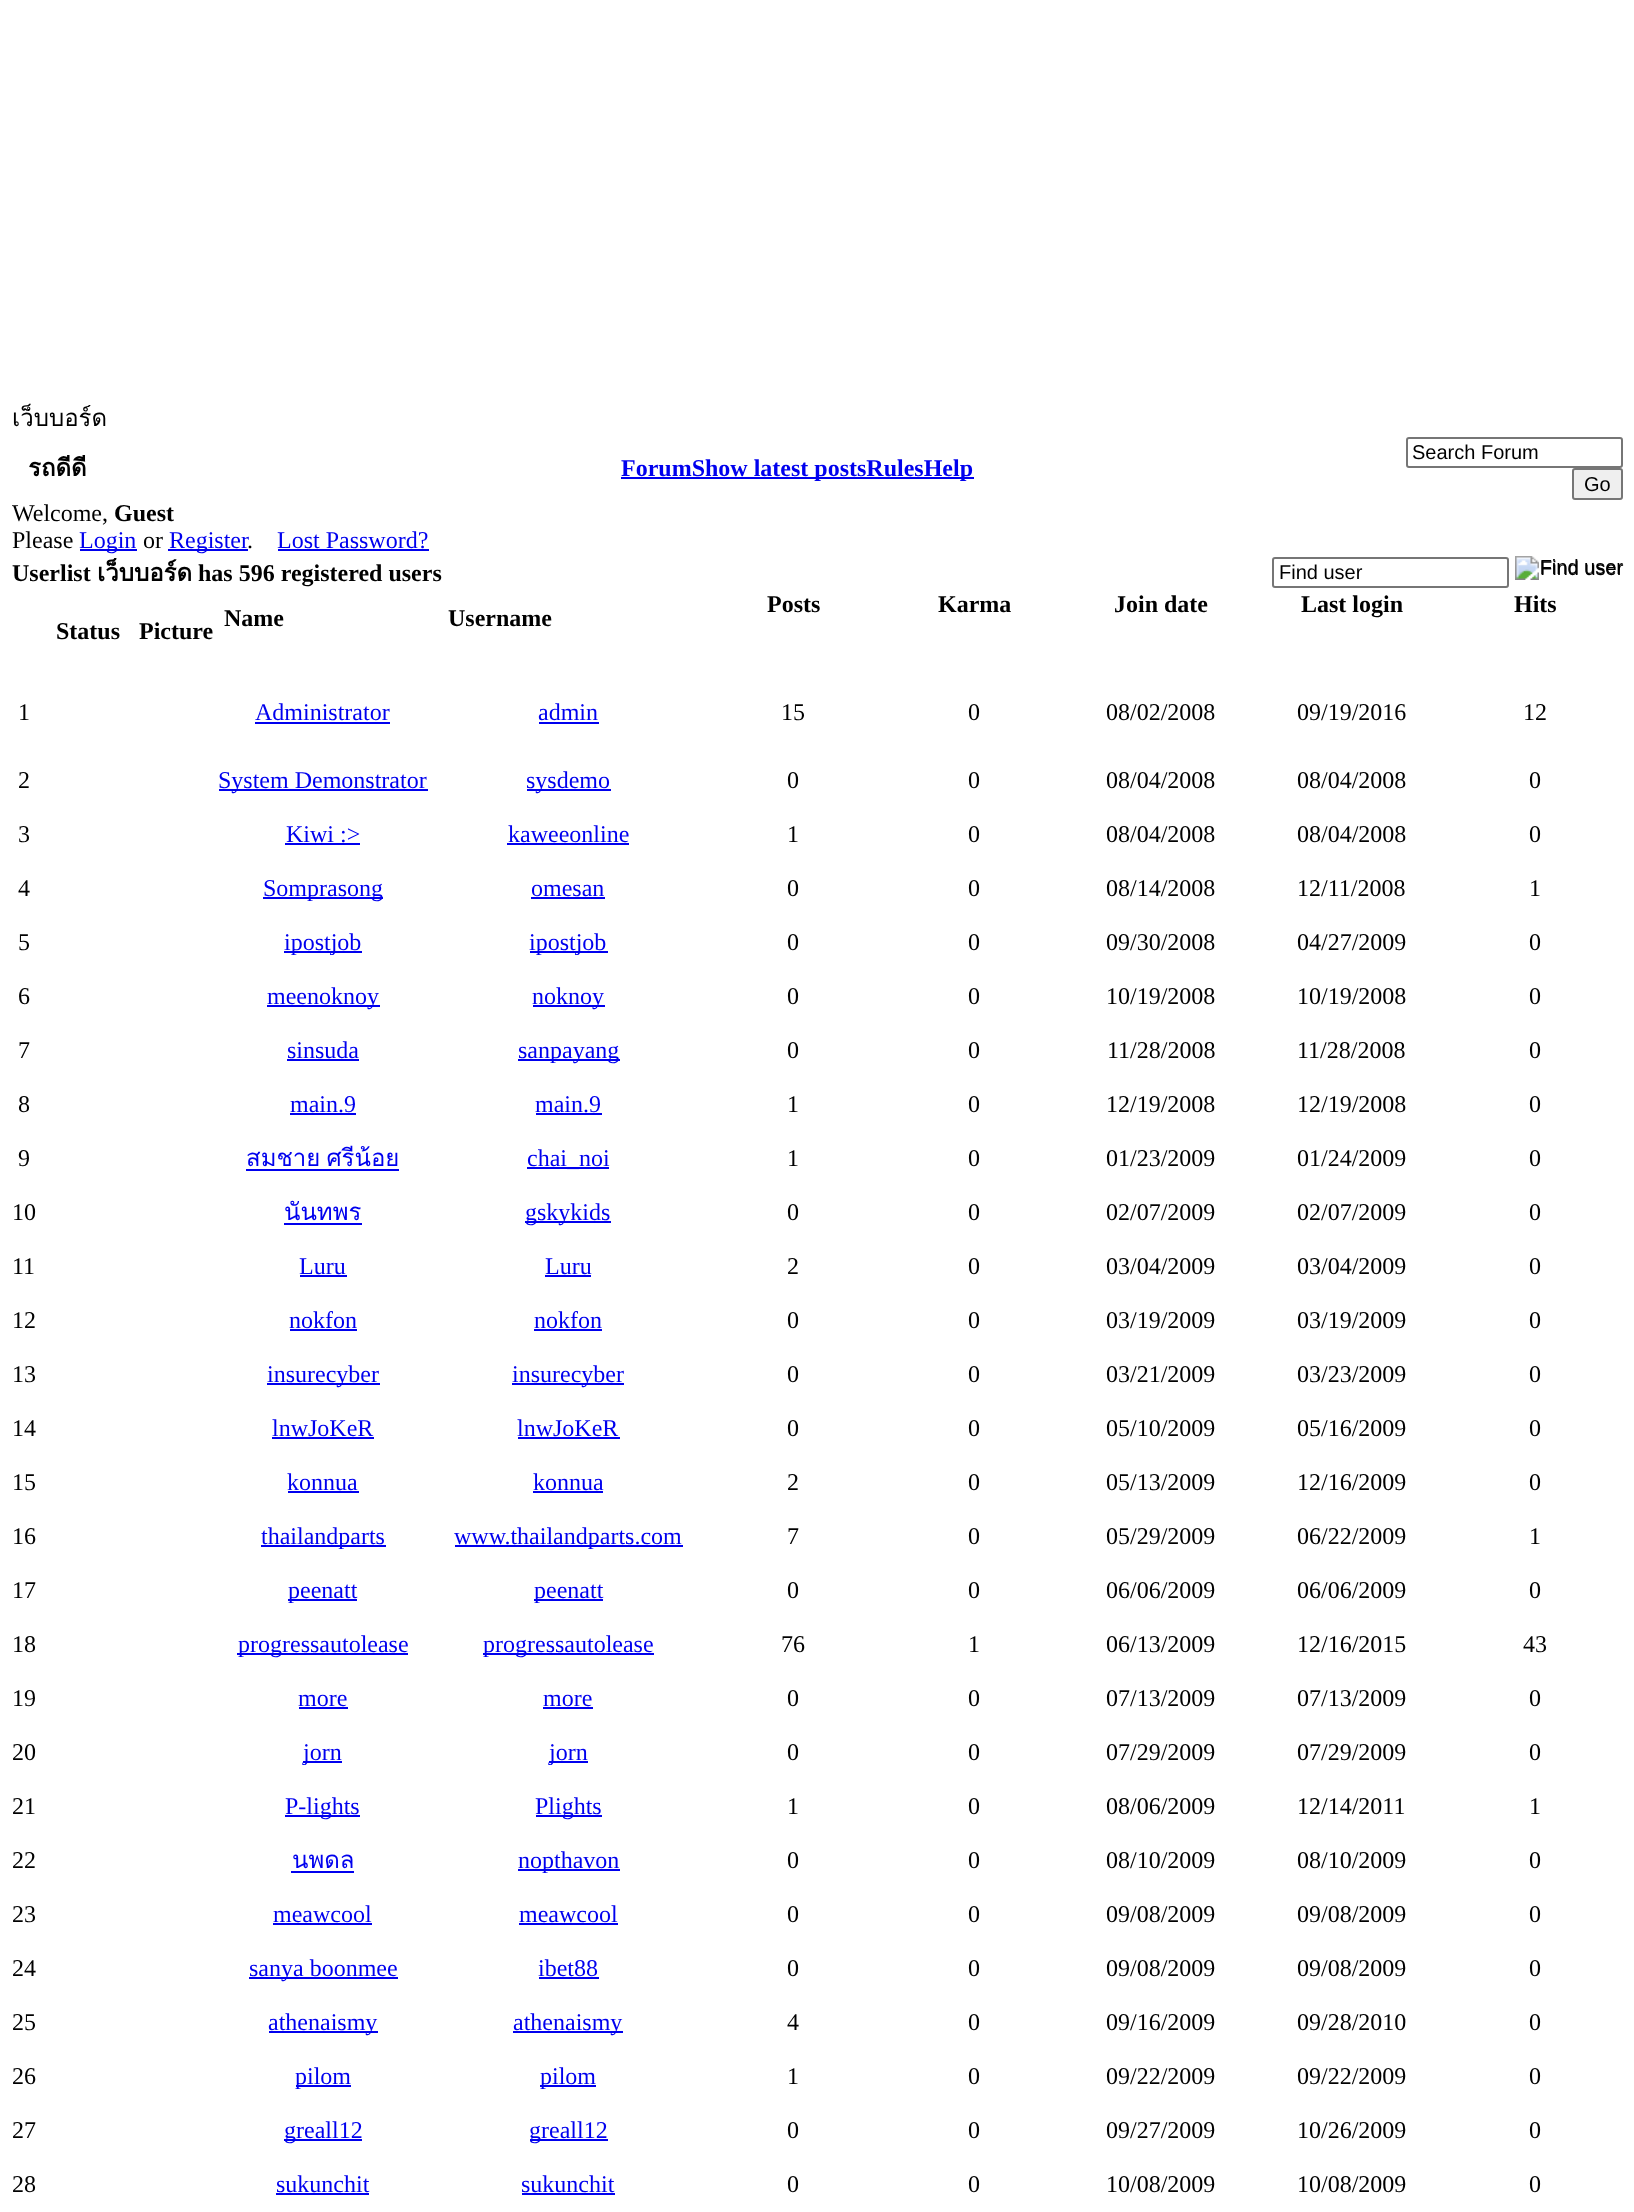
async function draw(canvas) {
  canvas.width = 1634;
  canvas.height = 2212;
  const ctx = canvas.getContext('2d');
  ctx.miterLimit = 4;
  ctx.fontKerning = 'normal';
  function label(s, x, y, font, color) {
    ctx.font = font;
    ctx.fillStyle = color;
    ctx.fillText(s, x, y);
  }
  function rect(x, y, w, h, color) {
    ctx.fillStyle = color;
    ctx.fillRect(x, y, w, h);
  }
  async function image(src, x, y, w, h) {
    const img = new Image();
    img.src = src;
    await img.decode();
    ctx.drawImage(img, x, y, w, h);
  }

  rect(0, 0, 1634, 2212, '#fff');
  label('เว็บบอร์ด', 12, 426, '24px Loma', '#000');
  label('รถดีดี', 28, 476, 'bold 24px Loma', '#000');
  rect(621, 477, 353, 2, '#00e');
  label('ForumShow latest postsRulesHelp', 621, 476, 'bold 24px Liberation Serif', '#00e');
  ctx.beginPath();
  ctx.roundRect(1407, 438, 215, 29, 2);
  ctx.strokeStyle = '#767676';
  ctx.lineWidth = 2;
  ctx.stroke();
  label('Search Forum', 1412, 459, '20px Liberation Sans', '#000');
  ctx.fillStyle = '#efefef';
  ctx.beginPath();
  ctx.roundRect(1573, 469, 49, 30, 2);
  ctx.fill();
  ctx.stroke();
  label('Go', 1584, 491, '20px Liberation Sans', '#000');
  label('Welcome,', 12, 521, '24px Liberation Serif', '#000');
  label('Guest', 114, 521, 'bold 24px Liberation Serif', '#000');
  label('Please', 12, 548, '24px Liberation Serif', '#000');
  rect(80, 549, 57, 2, '#00e');
  label('Login', 79, 548, '24px Liberation Serif', '#00e');
  label('or', 143, 548, '24px Liberation Serif', '#000');
  rect(168, 549, 80, 2, '#00e');
  label('Register', 169, 548, '24px Liberation Serif', '#00e');
  label('.', 247, 548, '24px Liberation Serif', '#000');
  label('Lost Password?', 277, 548, '24px Liberation Serif', '#00e');
  rect(278, 549, 151, 2, '#00e');
  label('Userlist', 12, 581, 'bold 24px Liberation Serif', '#000');
  label('เว็บบอร์ด', 97, 581, 'bold 24px Loma', '#000');
  label('has 596 registered users', 198, 581, 'bold 24px Liberation Serif', '#000');
  ctx.beginPath();
  ctx.roundRect(1273, 558, 235, 29, 2);
  ctx.stroke();
  label('Find user', 1279, 579, '20px Liberation Sans', '#000');
  await image('assets/img1.png', 1515, 556, 108, 24);
  label('Find user', 1540, 575, '20px Liberation Sans', '#000');
  label('Posts', 767, 612, 'bold 24px Liberation Serif', '#000');
  label('Karma', 938, 612, 'bold 24px Liberation Serif', '#000');
  label('Join date', 1114, 612, 'bold 24px Liberation Serif', '#000');
  label('Last login', 1301, 612, 'bold 24px Liberation Serif', '#000');
  label('Hits', 1514, 612, 'bold 24px Liberation Serif', '#000');
  label('Name', 224, 626, 'bold 24px Liberation Serif', '#000');
  label('Username', 448, 626, 'bold 24px Liberation Serif', '#000');
  label('Status', 56, 639, 'bold 24px Liberation Serif', '#000');
  label('Picture', 139, 639, 'bold 24px Liberation Serif', '#000');
  label('1', 18, 720, '24px Liberation Serif', '#000');
  label('Administrator', 255, 720, '24px Liberation Serif', '#00e');
  rect(255, 722, 135, 2, '#00e');
  label('admin', 538, 720, '24px Liberation Serif', '#00e');
  rect(539, 722, 60, 2, '#00e');
  label('15', 781, 720, '24px Liberation Serif', '#000');
  label('0', 968, 720, '24px Liberation Serif', '#000');
  label('08/02/2008', 1106, 720, '24px Liberation Serif', '#000');
  label('09/19/2016', 1297, 720, '24px Liberation Serif', '#000');
  label('12', 1523, 720, '24px Liberation Serif', '#000');
  label('2', 18, 788, '24px Liberation Serif', '#000');
  rect(219, 789, 209, 2, '#00e');
  label('System Demonstrator', 218, 788, '24px Liberation Serif', '#00e');
  rect(527, 789, 84, 2, '#00e');
  label('sysdemo', 526, 788, '24px Liberation Serif', '#00e');
  label('0', 787, 788, '24px Liberation Serif', '#000');
  label('0', 968, 788, '24px Liberation Serif', '#000');
  label('08/04/2008', 1106, 788, '24px Liberation Serif', '#000');
  label('08/04/2008', 1297, 788, '24px Liberation Serif', '#000');
  label('0', 1529, 788, '24px Liberation Serif', '#000');
  label('3', 18, 842, '24px Liberation Serif', '#000');
  label('Kiwi :>', 286, 842, '24px Liberation Serif', '#00e');
  rect(285, 843, 75, 2, '#00e');
  label('kaweeonline', 508, 842, '24px Liberation Serif', '#00e');
  rect(507, 843, 122, 2, '#00e');
  label('1', 787, 842, '24px Liberation Serif', '#000');
  label('0', 968, 842, '24px Liberation Serif', '#000');
  label('08/04/2008', 1106, 842, '24px Liberation Serif', '#000');
  label('08/04/2008', 1297, 842, '24px Liberation Serif', '#000');
  label('0', 1529, 842, '24px Liberation Serif', '#000');
  label('4', 18, 896, '24px Liberation Serif', '#000');
  rect(263, 897, 120, 2, '#00e');
  label('Somprasong', 263, 896, '24px Liberation Serif', '#00e');
  label('omesan', 531, 896, '24px Liberation Serif', '#00e');
  rect(531, 897, 74, 2, '#00e');
  label('0', 787, 896, '24px Liberation Serif', '#000');
  label('0', 968, 896, '24px Liberation Serif', '#000');
  label('08/14/2008', 1106, 896, '24px Liberation Serif', '#000');
  label('12/11/2008', 1297, 896, '24px Liberation Serif', '#000');
  label('1', 1529, 896, '24px Liberation Serif', '#000');
  label('5', 18, 950, '24px Liberation Serif', '#000');
  rect(284, 951, 78, 2, '#00e');
  label('ipostjob', 284, 950, '24px Liberation Serif', '#00e');
  rect(530, 951, 78, 2, '#00e');
  label('ipostjob', 529, 950, '24px Liberation Serif', '#00e');
  label('0', 787, 950, '24px Liberation Serif', '#000');
  label('0', 968, 950, '24px Liberation Serif', '#000');
  label('09/30/2008', 1106, 950, '24px Liberation Serif', '#000');
  label('04/27/2009', 1297, 950, '24px Liberation Serif', '#000');
  label('0', 1529, 950, '24px Liberation Serif', '#000');
  label('6', 18, 1004, '24px Liberation Serif', '#000');
  rect(267, 1005, 113, 2, '#00e');
  label('meenoknoy', 267, 1004, '24px Liberation Serif', '#00e');
  rect(533, 1005, 72, 2, '#00e');
  label('noknoy', 532, 1004, '24px Liberation Serif', '#00e');
  label('0', 787, 1004, '24px Liberation Serif', '#000');
  label('0', 968, 1004, '24px Liberation Serif', '#000');
  label('10/19/2008', 1106, 1004, '24px Liberation Serif', '#000');
  label('10/19/2008', 1297, 1004, '24px Liberation Serif', '#000');
  label('0', 1529, 1004, '24px Liberation Serif', '#000');
  label('7', 18, 1058, '24px Liberation Serif', '#000');
  label('sinsuda', 287, 1058, '24px Liberation Serif', '#00e');
  rect(287, 1059, 72, 2, '#00e');
  rect(518, 1059, 102, 2, '#00e');
  label('sanpayang', 518, 1058, '24px Liberation Serif', '#00e');
  label('0', 787, 1058, '24px Liberation Serif', '#000');
  label('0', 968, 1058, '24px Liberation Serif', '#000');
  label('11/28/2008', 1107, 1058, '24px Liberation Serif', '#000');
  label('11/28/2008', 1297, 1058, '24px Liberation Serif', '#000');
  label('0', 1529, 1058, '24px Liberation Serif', '#000');
  label('8', 18, 1112, '24px Liberation Serif', '#000');
  label('main.9', 290, 1112, '24px Liberation Serif', '#00e');
  rect(290, 1113, 66, 2, '#00e');
  label('main.9', 535, 1112, '24px Liberation Serif', '#00e');
  rect(536, 1113, 66, 2, '#00e');
  label('1', 787, 1112, '24px Liberation Serif', '#000');
  label('0', 968, 1112, '24px Liberation Serif', '#000');
  label('12/19/2008', 1106, 1112, '24px Liberation Serif', '#000');
  label('12/19/2008', 1297, 1112, '24px Liberation Serif', '#000');
  label('0', 1529, 1112, '24px Liberation Serif', '#000');
  label('9', 18, 1166, '24px Liberation Serif', '#000');
  ctx.wordSpacing = '-2px';
  label('สมชาย ศรีน้อย', 246, 1166, '24px Loma', '#00e');
  rect(246, 1169, 153, 2, '#00e');
  rect(527, 1167, 82, 2, '#00e');
  ctx.wordSpacing = '0px';
  label('chai_noi', 527, 1166, '24px Liberation Serif', '#00e');
  label('1', 787, 1166, '24px Liberation Serif', '#000');
  label('0', 968, 1166, '24px Liberation Serif', '#000');
  label('01/23/2009', 1106, 1166, '24px Liberation Serif', '#000');
  label('01/24/2009', 1297, 1166, '24px Liberation Serif', '#000');
  label('0', 1529, 1166, '24px Liberation Serif', '#000');
  label('10', 12, 1220, '24px Liberation Serif', '#000');
  label('นันทพร', 284, 1220, '24px Loma', '#00e');
  rect(284, 1223, 78, 2, '#00e');
  rect(525, 1221, 86, 2, '#00e');
  label('gskykids', 525, 1220, '24px Liberation Serif', '#00e');
  label('0', 787, 1220, '24px Liberation Serif', '#000');
  label('0', 968, 1220, '24px Liberation Serif', '#000');
  label('02/07/2009', 1106, 1220, '24px Liberation Serif', '#000');
  label('02/07/2009', 1297, 1220, '24px Liberation Serif', '#000');
  label('0', 1529, 1220, '24px Liberation Serif', '#000');
  label('11', 12, 1274, '24px Liberation Serif', '#000');
  label('Luru', 299, 1274, '24px Liberation Serif', '#00e');
  rect(300, 1275, 47, 2, '#00e');
  label('Luru', 545, 1274, '24px Liberation Serif', '#00e');
  rect(545, 1275, 46, 2, '#00e');
  label('2', 787, 1274, '24px Liberation Serif', '#000');
  label('0', 968, 1274, '24px Liberation Serif', '#000');
  label('03/04/2009', 1106, 1274, '24px Liberation Serif', '#000');
  label('03/04/2009', 1297, 1274, '24px Liberation Serif', '#000');
  label('0', 1529, 1274, '24px Liberation Serif', '#000');
  label('12', 12, 1328, '24px Liberation Serif', '#000');
  label('nokfon', 289, 1328, '24px Liberation Serif', '#00e');
  rect(290, 1329, 67, 2, '#00e');
  label('nokfon', 534, 1328, '24px Liberation Serif', '#00e');
  rect(534, 1329, 68, 2, '#00e');
  label('0', 787, 1328, '24px Liberation Serif', '#000');
  label('0', 968, 1328, '24px Liberation Serif', '#000');
  label('03/19/2009', 1106, 1328, '24px Liberation Serif', '#000');
  label('03/19/2009', 1297, 1328, '24px Liberation Serif', '#000');
  label('0', 1529, 1328, '24px Liberation Serif', '#000');
  label('13', 12, 1382, '24px Liberation Serif', '#000');
  rect(267, 1383, 113, 2, '#00e');
  label('insurecyber', 267, 1382, '24px Liberation Serif', '#00e');
  rect(512, 1383, 112, 2, '#00e');
  label('insurecyber', 512, 1382, '24px Liberation Serif', '#00e');
  label('0', 787, 1382, '24px Liberation Serif', '#000');
  label('0', 968, 1382, '24px Liberation Serif', '#000');
  label('03/21/2009', 1106, 1382, '24px Liberation Serif', '#000');
  label('03/23/2009', 1297, 1382, '24px Liberation Serif', '#000');
  label('0', 1529, 1382, '24px Liberation Serif', '#000');
  label('14', 12, 1436, '24px Liberation Serif', '#000');
  label('lnwJoKeR', 272, 1436, '24px Liberation Serif', '#00e');
  rect(272, 1437, 102, 2, '#00e');
  label('lnwJoKeR', 517, 1436, '24px Liberation Serif', '#00e');
  rect(518, 1437, 102, 2, '#00e');
  label('0', 787, 1436, '24px Liberation Serif', '#000');
  label('0', 968, 1436, '24px Liberation Serif', '#000');
  label('05/10/2009', 1106, 1436, '24px Liberation Serif', '#000');
  label('05/16/2009', 1297, 1436, '24px Liberation Serif', '#000');
  label('0', 1529, 1436, '24px Liberation Serif', '#000');
  label('15', 12, 1490, '24px Liberation Serif', '#000');
  label('konnua', 287, 1490, '24px Liberation Serif', '#00e');
  rect(288, 1491, 71, 2, '#00e');
  label('konnua', 533, 1490, '24px Liberation Serif', '#00e');
  rect(533, 1491, 70, 2, '#00e');
  label('2', 787, 1490, '24px Liberation Serif', '#000');
  label('0', 968, 1490, '24px Liberation Serif', '#000');
  label('05/13/2009', 1106, 1490, '24px Liberation Serif', '#000');
  label('12/16/2009', 1297, 1490, '24px Liberation Serif', '#000');
  label('0', 1529, 1490, '24px Liberation Serif', '#000');
  label('16', 12, 1544, '24px Liberation Serif', '#000');
  rect(261, 1545, 125, 2, '#00e');
  label('thailandparts', 261, 1544, '24px Liberation Serif', '#00e');
  rect(455, 1545, 228, 2, '#00e');
  label('www.thailandparts.com', 454, 1544, '24px Liberation Serif', '#00e');
  label('7', 787, 1544, '24px Liberation Serif', '#000');
  label('0', 968, 1544, '24px Liberation Serif', '#000');
  label('05/29/2009', 1106, 1544, '24px Liberation Serif', '#000');
  label('06/22/2009', 1297, 1544, '24px Liberation Serif', '#000');
  label('1', 1529, 1544, '24px Liberation Serif', '#000');
  label('17', 12, 1598, '24px Liberation Serif', '#000');
  rect(288, 1599, 69, 2, '#00e');
  label('peenatt', 288, 1598, '24px Liberation Serif', '#00e');
  rect(534, 1599, 69, 2, '#00e');
  label('peenatt', 534, 1598, '24px Liberation Serif', '#00e');
  label('0', 787, 1598, '24px Liberation Serif', '#000');
  label('0', 968, 1598, '24px Liberation Serif', '#000');
  label('06/06/2009', 1106, 1598, '24px Liberation Serif', '#000');
  label('06/06/2009', 1297, 1598, '24px Liberation Serif', '#000');
  label('0', 1529, 1598, '24px Liberation Serif', '#000');
  label('18', 12, 1652, '24px Liberation Serif', '#000');
  rect(237, 1653, 171, 2, '#00e');
  label('progressautolease', 238, 1652, '24px Liberation Serif', '#00e');
  rect(483, 1653, 171, 2, '#00e');
  label('progressautolease', 483, 1652, '24px Liberation Serif', '#00e');
  label('76', 781, 1652, '24px Liberation Serif', '#000');
  label('1', 968, 1652, '24px Liberation Serif', '#000');
  label('06/13/2009', 1106, 1652, '24px Liberation Serif', '#000');
  label('12/16/2015', 1297, 1652, '24px Liberation Serif', '#000');
  label('43', 1523, 1652, '24px Liberation Serif', '#000');
  label('19', 12, 1706, '24px Liberation Serif', '#000');
  label('more', 298, 1706, '24px Liberation Serif', '#00e');
  rect(299, 1707, 49, 2, '#00e');
  label('more', 543, 1706, '24px Liberation Serif', '#00e');
  rect(543, 1707, 50, 2, '#00e');
  label('0', 787, 1706, '24px Liberation Serif', '#000');
  label('0', 968, 1706, '24px Liberation Serif', '#000');
  label('07/13/2009', 1106, 1706, '24px Liberation Serif', '#000');
  label('07/13/2009', 1297, 1706, '24px Liberation Serif', '#000');
  label('0', 1529, 1706, '24px Liberation Serif', '#000');
  label('20', 12, 1760, '24px Liberation Serif', '#000');
  rect(303, 1761, 39, 2, '#00e');
  label('jorn', 303, 1760, '24px Liberation Serif', '#00e');
  rect(549, 1761, 39, 2, '#00e');
  label('jorn', 549, 1760, '24px Liberation Serif', '#00e');
  label('0', 787, 1760, '24px Liberation Serif', '#000');
  label('0', 968, 1760, '24px Liberation Serif', '#000');
  label('07/29/2009', 1106, 1760, '24px Liberation Serif', '#000');
  label('07/29/2009', 1297, 1760, '24px Liberation Serif', '#000');
  label('0', 1529, 1760, '24px Liberation Serif', '#000');
  label('21', 12, 1814, '24px Liberation Serif', '#000');
  rect(285, 1815, 75, 2, '#00e');
  label('P-lights', 285, 1814, '24px Liberation Serif', '#00e');
  rect(536, 1815, 66, 2, '#00e');
  label('Plights', 535, 1814, '24px Liberation Serif', '#00e');
  label('1', 787, 1814, '24px Liberation Serif', '#000');
  label('0', 968, 1814, '24px Liberation Serif', '#000');
  label('08/06/2009', 1106, 1814, '24px Liberation Serif', '#000');
  label('12/14/2011', 1297, 1814, '24px Liberation Serif', '#000');
  label('1', 1529, 1814, '24px Liberation Serif', '#000');
  label('22', 12, 1868, '24px Liberation Serif', '#000');
  label('นพดล', 292, 1868, '24px Loma', '#00e');
  rect(291, 1871, 63, 2, '#00e');
  rect(518, 1869, 102, 2, '#00e');
  label('nopthavon', 518, 1868, '24px Liberation Serif', '#00e');
  label('0', 787, 1868, '24px Liberation Serif', '#000');
  label('0', 968, 1868, '24px Liberation Serif', '#000');
  label('08/10/2009', 1106, 1868, '24px Liberation Serif', '#000');
  label('08/10/2009', 1297, 1868, '24px Liberation Serif', '#000');
  label('0', 1529, 1868, '24px Liberation Serif', '#000');
  label('23', 12, 1922, '24px Liberation Serif', '#000');
  label('meawcool', 273, 1922, '24px Liberation Serif', '#00e');
  rect(273, 1923, 99, 2, '#00e');
  label('meawcool', 519, 1922, '24px Liberation Serif', '#00e');
  rect(519, 1923, 99, 2, '#00e');
  label('0', 787, 1922, '24px Liberation Serif', '#000');
  label('0', 968, 1922, '24px Liberation Serif', '#000');
  label('09/08/2009', 1106, 1922, '24px Liberation Serif', '#000');
  label('09/08/2009', 1297, 1922, '24px Liberation Serif', '#000');
  label('0', 1529, 1922, '24px Liberation Serif', '#000');
  label('24', 12, 1976, '24px Liberation Serif', '#000');
  rect(249, 1977, 149, 2, '#00e');
  label('sanya boonmee', 249, 1976, '24px Liberation Serif', '#00e');
  label('ibet88', 538, 1976, '24px Liberation Serif', '#00e');
  rect(539, 1977, 60, 2, '#00e');
  label('0', 787, 1976, '24px Liberation Serif', '#000');
  label('0', 968, 1976, '24px Liberation Serif', '#000');
  label('09/08/2009', 1106, 1976, '24px Liberation Serif', '#000');
  label('09/08/2009', 1297, 1976, '24px Liberation Serif', '#000');
  label('0', 1529, 1976, '24px Liberation Serif', '#000');
  label('25', 12, 2030, '24px Liberation Serif', '#000');
  rect(269, 2031, 109, 2, '#00e');
  label('athenaismy', 268, 2030, '24px Liberation Serif', '#00e');
  rect(513, 2031, 110, 2, '#00e');
  label('athenaismy', 513, 2030, '24px Liberation Serif', '#00e');
  label('4', 787, 2030, '24px Liberation Serif', '#000');
  label('0', 968, 2030, '24px Liberation Serif', '#000');
  label('09/16/2009', 1106, 2030, '24px Liberation Serif', '#000');
  label('09/28/2010', 1297, 2030, '24px Liberation Serif', '#000');
  label('0', 1529, 2030, '24px Liberation Serif', '#000');
  label('26', 12, 2084, '24px Liberation Serif', '#000');
  rect(296, 2085, 55, 2, '#00e');
  label('pilom', 295, 2084, '24px Liberation Serif', '#00e');
  rect(540, 2085, 56, 2, '#00e');
  label('pilom', 540, 2084, '24px Liberation Serif', '#00e');
  label('1', 787, 2084, '24px Liberation Serif', '#000');
  label('0', 968, 2084, '24px Liberation Serif', '#000');
  label('09/22/2009', 1106, 2084, '24px Liberation Serif', '#000');
  label('09/22/2009', 1297, 2084, '24px Liberation Serif', '#000');
  label('0', 1529, 2084, '24px Liberation Serif', '#000');
  label('27', 12, 2138, '24px Liberation Serif', '#000');
  rect(284, 2139, 78, 2, '#00e');
  label('greall12', 284, 2138, '24px Liberation Serif', '#00e');
  rect(530, 2139, 78, 2, '#00e');
  label('greall12', 529, 2138, '24px Liberation Serif', '#00e');
  label('0', 787, 2138, '24px Liberation Serif', '#000');
  label('0', 968, 2138, '24px Liberation Serif', '#000');
  label('09/27/2009', 1106, 2138, '24px Liberation Serif', '#000');
  label('10/26/2009', 1297, 2138, '24px Liberation Serif', '#000');
  label('0', 1529, 2138, '24px Liberation Serif', '#000');
  label('28', 12, 2192, '24px Liberation Serif', '#000');
  label('sukunchit', 276, 2192, '24px Liberation Serif', '#00e');
  rect(276, 2193, 93, 2, '#00e');
  label('sukunchit', 521, 2192, '24px Liberation Serif', '#00e');
  rect(522, 2193, 93, 2, '#00e');
  label('0', 787, 2192, '24px Liberation Serif', '#000');
  label('0', 968, 2192, '24px Liberation Serif', '#000');
  label('10/08/2009', 1106, 2192, '24px Liberation Serif', '#000');
  label('10/08/2009', 1297, 2192, '24px Liberation Serif', '#000');
  label('0', 1529, 2192, '24px Liberation Serif', '#000');
}

draw(document.querySelector('canvas'));
